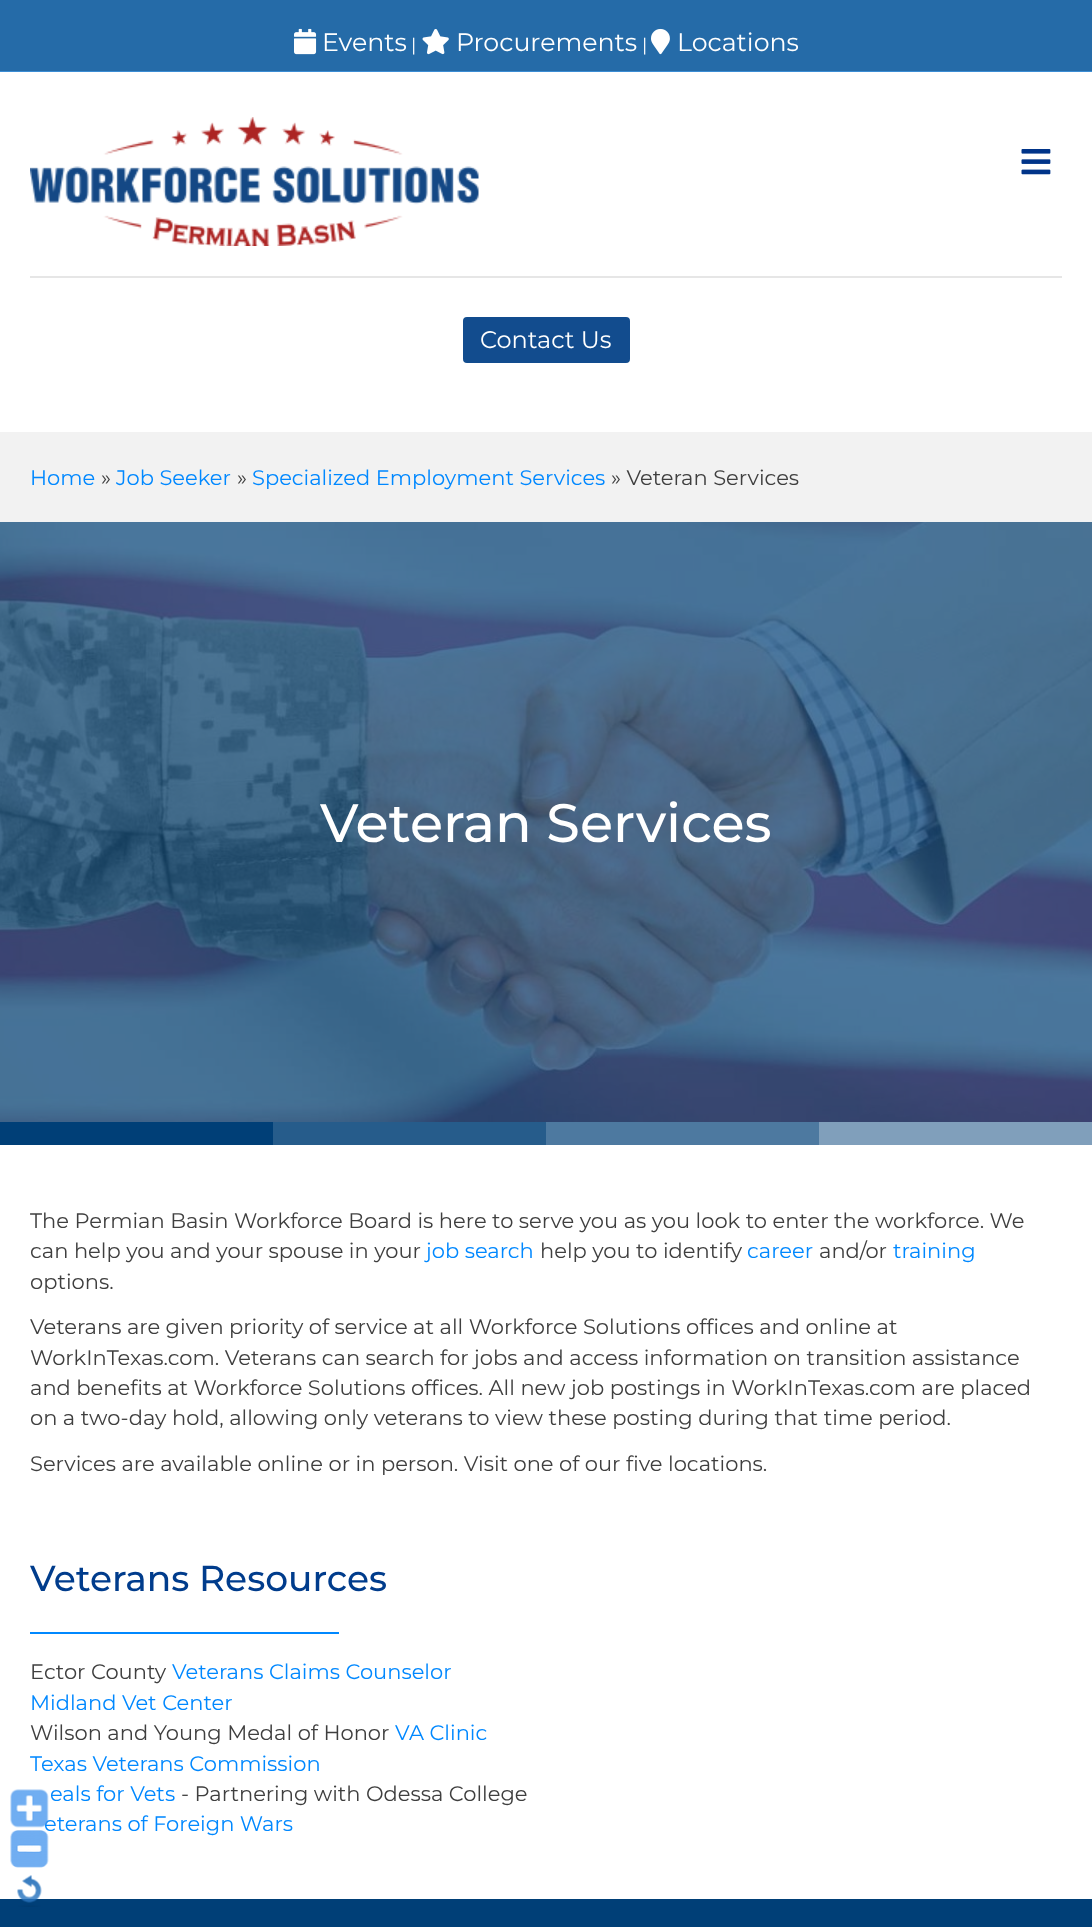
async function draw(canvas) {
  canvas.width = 1092;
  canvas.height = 1927;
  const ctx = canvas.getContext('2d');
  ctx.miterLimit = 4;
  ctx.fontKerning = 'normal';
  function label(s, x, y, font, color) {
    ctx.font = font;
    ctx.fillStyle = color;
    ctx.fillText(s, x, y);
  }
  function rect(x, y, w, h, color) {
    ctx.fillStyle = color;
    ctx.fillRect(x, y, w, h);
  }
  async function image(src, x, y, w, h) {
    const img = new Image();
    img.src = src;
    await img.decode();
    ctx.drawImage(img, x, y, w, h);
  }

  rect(0, 0, 1092, 1927, '#f2f2f2');
  rect(0, 0, 1092, 71, '#256ba8');
  rect(0, 71, 1092, 1, '#3b8dd4');
  await image('assets/img1.png', 294, 28, 23, 27);
  label('Events', 322, 51, '25.25px Montserrat', '#fff');
  label('|', 411, 51, '18px Montserrat', '#fff');
  await image('assets/img2.png', 422, 29, 27, 26);
  label('Procurements', 456, 51, '25.25px Montserrat', '#fff');
  label('|', 642, 51, '18px Montserrat', '#fff');
  await image('assets/img3.png', 651, 28, 19, 27);
  label('Locations', 677, 51, '25.25px Montserrat', '#fff');
  rect(0, 72, 1092, 360, '#fff');
  await image('assets/img4.png', 1021, 149, 30, 26);
  await image('assets/img5.png', 30, 117, 449, 129);
  rect(30, 276, 1032, 2, '#e6e6e6');
  ctx.fillStyle = '#124c8e';
  ctx.beginPath();
  ctx.roundRect(462, 316, 169, 48, 5);
  ctx.fill();
  ctx.strokeStyle = '#fff';
  ctx.lineWidth = 2;
  ctx.stroke();
  label('Contact Us', 480, 348, '24px Montserrat', '#fff');
  label('Home', 30, 485, '21px Montserrat', '#08f');
  label('»', 101, 485, '21px Montserrat', '#3f3f3f');
  label('Job Seeker', 116, 485, '21px Montserrat', '#08f');
  label('»', 237, 485, '21px Montserrat', '#3f3f3f');
  label('Specialized Employment Services', 252, 485, '21px Montserrat', '#08f');
  label('» Veteran Services', 611, 485, '21px Montserrat', '#3f3f3f');
  rect(0, 1145, 1092, 754, '#fff');
  await image('assets/img6.png', 0, 522, 1092, 600);
  label('Veteran Services', 320, 842, '500 54px Montserrat', '#fff');
  rect(0, 1122, 273, 23, '#003f77');
  rect(273, 1122, 273, 23, '#265c8b');
  rect(546, 1122, 273, 23, '#4d79a0');
  rect(819, 1122, 273, 23, '#809fbb');
  label('The Permian Basin Workforce Board is here to serve you as you look to enter the workforce. We', 30, 1228, '21px Montserrat', '#3f3f3f');
  label('can help you and your spouse in your', 30, 1258, '21px Montserrat', '#3f3f3f');
  label('job search', 426, 1258, '21px Montserrat', '#08f');
  label('help you to identify', 540, 1258, '21px Montserrat', '#3f3f3f');
  label('career', 747, 1258, '21px Montserrat', '#08f');
  label('and/or', 819, 1258, '21px Montserrat', '#3f3f3f');
  label('training', 893, 1258, '21px Montserrat', '#08f');
  label('options.', 30, 1289, '21px Montserrat', '#3f3f3f');
  label('Veterans are given priority of service at all Workforce Solutions offices and online at', 30, 1334, '21px Montserrat', '#3f3f3f');
  label('WorkInTexas.com. Veterans can search for jobs and access information on transition assistance', 30, 1365, '21px Montserrat', '#3f3f3f');
  label('and benefits at Workforce Solutions offices. All new job postings in WorkInTexas.com are placed', 30, 1395, '21px Montserrat', '#3f3f3f');
  label('on a two-day hold, allowing only veterans to view these posting during that time period.', 30, 1425, '21px Montserrat', '#3f3f3f');
  label('Services are available online or in person. Visit one of our five locations.', 30, 1471, '21px Montserrat', '#3f3f3f');
  label('Veterans Resources', 30, 1591, '500 36px Montserrat', '#003c8c');
  rect(30, 1632, 309, 2, '#08f');
  label('Ector County', 30, 1679, '21px Montserrat', '#3f3f3f');
  label('Veterans Claims Counselor', 172, 1679, '21px Montserrat', '#08f');
  label('Midland Vet Center', 30, 1710, '21px Montserrat', '#08f');
  label('Wilson and Young Medal of Honor', 30, 1740, '21px Montserrat', '#3f3f3f');
  label('VA Clinic', 395, 1740, '21px Montserrat', '#08f');
  label('Texas Veterans Commission', 30, 1771, '21px Montserrat', '#08f');
  label('eals for Vets', 50, 1801, '21px Montserrat', '#08f');
  label('- Partnering with Odessa College', 181, 1801, '21px Montserrat', '#3f3f3f');
  label('eterans of Foreign Wars', 44, 1831, '21px Montserrat', '#08f');
  rect(0, 1899, 1092, 28, '#003f77');
  await image('assets/img7.png', 10, 1789, 39, 39);
  await image('assets/img8.png', 10, 1830, 39, 38);
  await image('assets/img9.png', 17, 1875, 25, 32);
}

draw(document.querySelector('canvas'));
